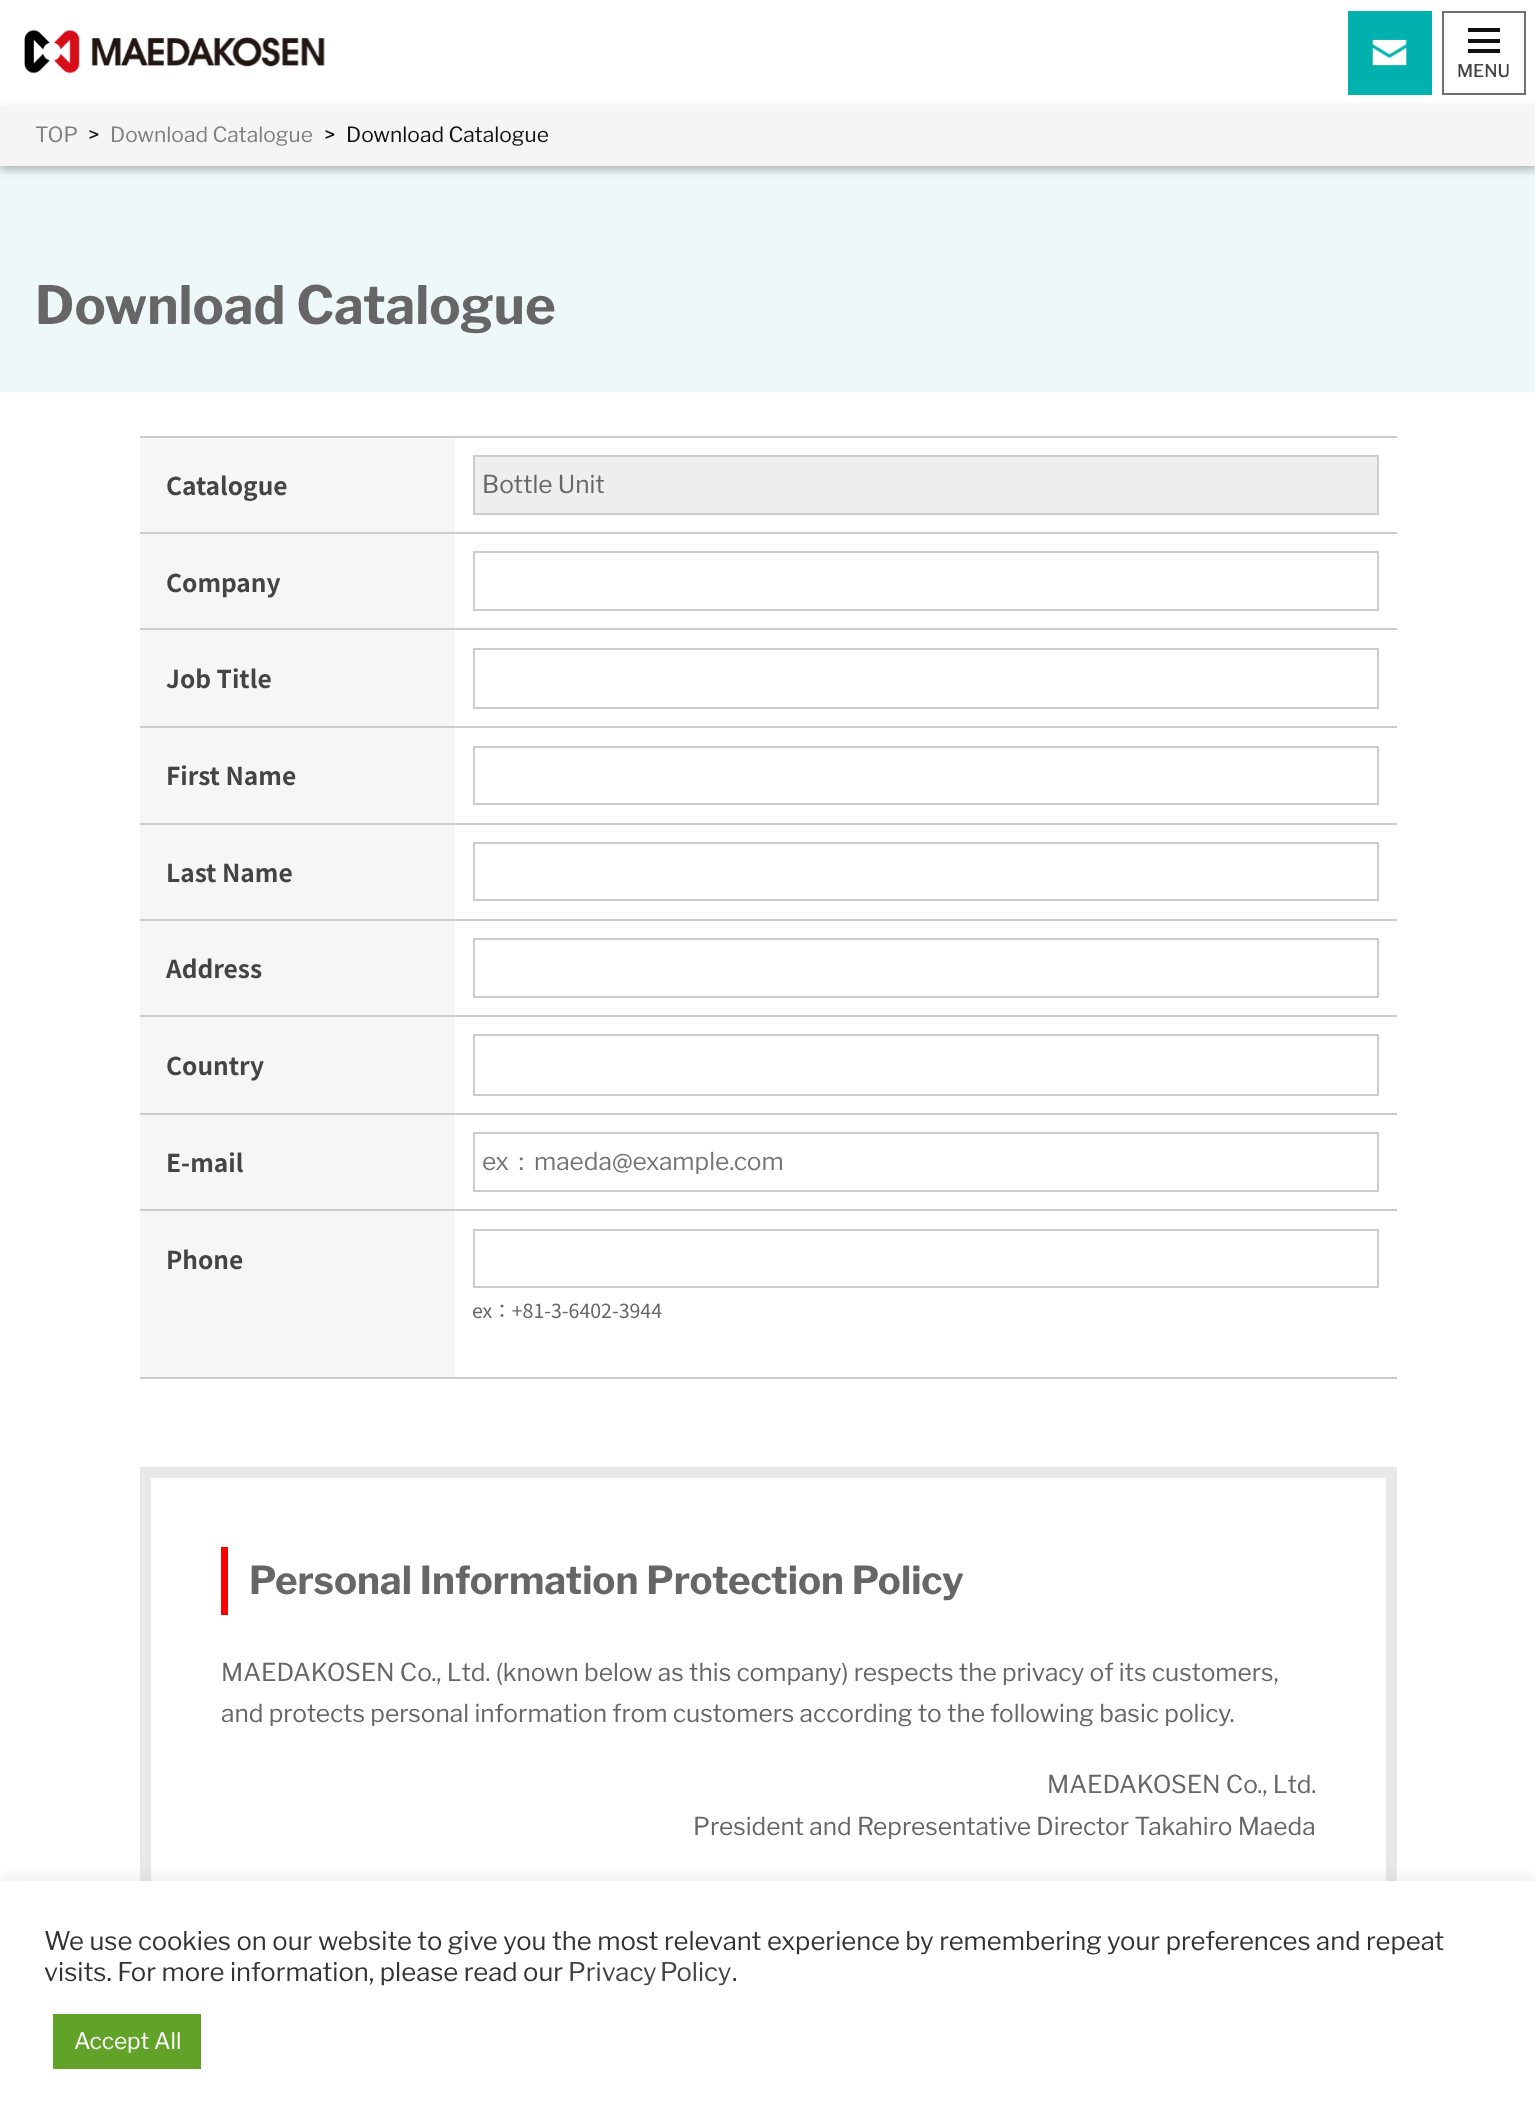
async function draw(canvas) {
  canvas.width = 1535;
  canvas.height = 2121;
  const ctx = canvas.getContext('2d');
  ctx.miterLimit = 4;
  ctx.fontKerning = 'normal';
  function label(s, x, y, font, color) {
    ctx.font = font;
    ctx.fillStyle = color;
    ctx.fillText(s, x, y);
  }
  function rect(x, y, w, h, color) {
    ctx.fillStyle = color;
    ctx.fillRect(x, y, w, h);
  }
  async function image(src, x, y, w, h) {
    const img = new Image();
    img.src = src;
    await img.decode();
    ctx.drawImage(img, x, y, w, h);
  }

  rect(0, 0, 1535, 2121, '#fff');
  rect(0, 166, 1535, 226, '#eef8f9');
  ctx.save();
  ctx.beginPath();
  ctx.rect(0, 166, 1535, 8);
  ctx.clip();
  ctx.fillStyle = '#00000029';
  ctx.filter = 'blur(5px)';
  ctx.beginPath();
  ctx.rect(0, 2, 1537, 166);
  ctx.fill();
  ctx.filter = 'none';
  ctx.restore();
  await image('assets/img1.png', 24, 29, 301, 45);
  ctx.fillStyle = '#00000029';
  ctx.filter = 'blur(5px)';
  ctx.beginPath();
  ctx.rect(0, 109, 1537, 61);
  ctx.fill();
  ctx.filter = 'none';
  rect(1348, 11, 84, 84, '#01b1ad');
  await image('assets/img2.png', 1372, 39, 35, 27);
  ctx.strokeStyle = '#707070';
  ctx.lineWidth = 2;
  ctx.strokeRect(1443, 12, 82, 82);
  rect(1468, 28, 32, 4, '#111');
  rect(1468, 39, 32, 4, '#111');
  rect(1468, 49, 32, 4, '#111');
  label('MENU', 1457, 77, '500 17.5px Libre Franklin', '#444');
  rect(0, 105, 1535, 61, '#f5f5f5');
  label('TOP', 35, 142, '21px Libre Franklin', '#7f7f7f');
  label('>', 88, 142, '21px Libre Franklin', '#111');
  label('Download Catalogue', 110, 142, '21px Libre Franklin', '#7f7f7f');
  label('>', 324, 142, '21px Libre Franklin', '#111');
  label('Download Catalogue', 346, 142, '21px Libre Franklin', '#111');
  label('Download Catalogue', 35, 324, 'bold 52.5px Libre Franklin', '#666');
  rect(140, 438, 315, 939, '#f6f6f6');
  rect(140, 436, 1257, 2, '#ccc');
  label('Catalogue', 166, 495, 'bold 24.5px Noto Sans JP', '#444');
  ctx.fillStyle = '#eee';
  ctx.beginPath();
  ctx.rect(474, 456, 904, 58);
  ctx.fill();
  ctx.strokeStyle = '#ccc';
  ctx.stroke();
  label('Bottle Unit', 482, 493, '24.5px Libre Franklin', '#666');
  rect(140, 532, 1257, 2, '#ccc');
  label('Company', 166, 592, 'bold 24.5px Noto Sans JP', '#444');
  ctx.strokeRect(474, 552, 904, 58);
  rect(140, 628, 1257, 2, '#ccc');
  label('Job Title', 166, 688, 'bold 24.5px Noto Sans JP', '#444');
  ctx.strokeRect(474, 649, 904, 59);
  rect(140, 726, 1257, 2, '#ccc');
  label('First Name', 166, 785, 'bold 24.5px Noto Sans JP', '#444');
  ctx.strokeRect(474, 747, 904, 57);
  rect(140, 823, 1257, 2, '#ccc');
  label('Last Name', 166, 882, 'bold 24.5px Noto Sans JP', '#444');
  ctx.strokeRect(474, 843, 904, 57);
  rect(140, 919, 1257, 2, '#ccc');
  label('Address', 166, 978, 'bold 24.5px Noto Sans JP', '#444');
  ctx.strokeRect(474, 939, 904, 58);
  rect(140, 1015, 1257, 2, '#ccc');
  label('Country', 166, 1075, 'bold 24.5px Noto Sans JP', '#444');
  ctx.strokeRect(474, 1035, 904, 60);
  rect(140, 1113, 1257, 2, '#ccc');
  label('E-mail', 166, 1172, 'bold 24.5px Noto Sans JP', '#444');
  ctx.strokeRect(474, 1133, 904, 58);
  label('ex', 482, 1170, '24.5px Libre Franklin', '#757575');
  label('：', 509, 1170, '500 24.5px WenQuanYi Zen Hei', '#757575');
  label('maeda@example.com', 534, 1170, '24.5px Libre Franklin', '#757575');
  rect(140, 1209, 1257, 2, '#ccc');
  rect(140, 1377, 1257, 2, '#ccc');
  label('Phone', 166, 1269, 'bold 24.5px Noto Sans JP', '#444');
  ctx.strokeRect(474, 1230, 904, 57);
  label('ex：+81-3-6402-3944', 472, 1318, '19.5px Noto Sans JP', '#666');
  ctx.strokeStyle = '#e8e8e8';
  ctx.lineWidth = 11;
  ctx.strokeRect(145.5, 1472.5, 1246, 514);
  rect(221, 1547, 7, 68, '#f80300');
  label('Personal Information Protection Policy', 249, 1594, 'bold 38.5px Libre Franklin', '#666');
  label('MAEDAKOSEN Co., Ltd. (known below as this company) respects the privacy of its customers,', 221, 1681, '24.5px Libre Franklin', '#666');
  label('and protects personal information from customers according to the following basic policy.', 221, 1722, '24.5px Libre Franklin', '#666');
  label('MAEDAKOSEN Co., Ltd.', 1047, 1793, '24.5px Libre Franklin', '#666');
  label('President and Representative Director Takahiro Maeda', 693, 1835, '24.5px Libre Franklin', '#666');
  ctx.fillStyle = '#acabab4d';
  ctx.filter = 'blur(9px)';
  ctx.beginPath();
  ctx.rect(0, 1880, 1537, 239);
  ctx.fill();
  ctx.filter = 'none';
  rect(0, 1881, 1535, 240, '#fff');
  label('We use cookies on our website to give you the most relevant experience by remembering your preferences and repeat', 44, 1950, '25.67px Libre Franklin', '#333');
  label('visits. For more information, please read our', 44, 1981, '25.67px Libre Franklin', '#333');
  ctx.wordSpacing = '-2px';
  label('Privacy Policy', 568, 1981, '25.67px Libre Franklin', '#444');
  ctx.wordSpacing = '0px';
  label('.', 732, 1981, '25.67px Libre Franklin', '#333');
  rect(53, 2014, 148, 55, '#61a229');
  label('Accept All', 74, 2049, '22.75px Libre Franklin', '#fff');
}

draw(document.querySelector('canvas'));
